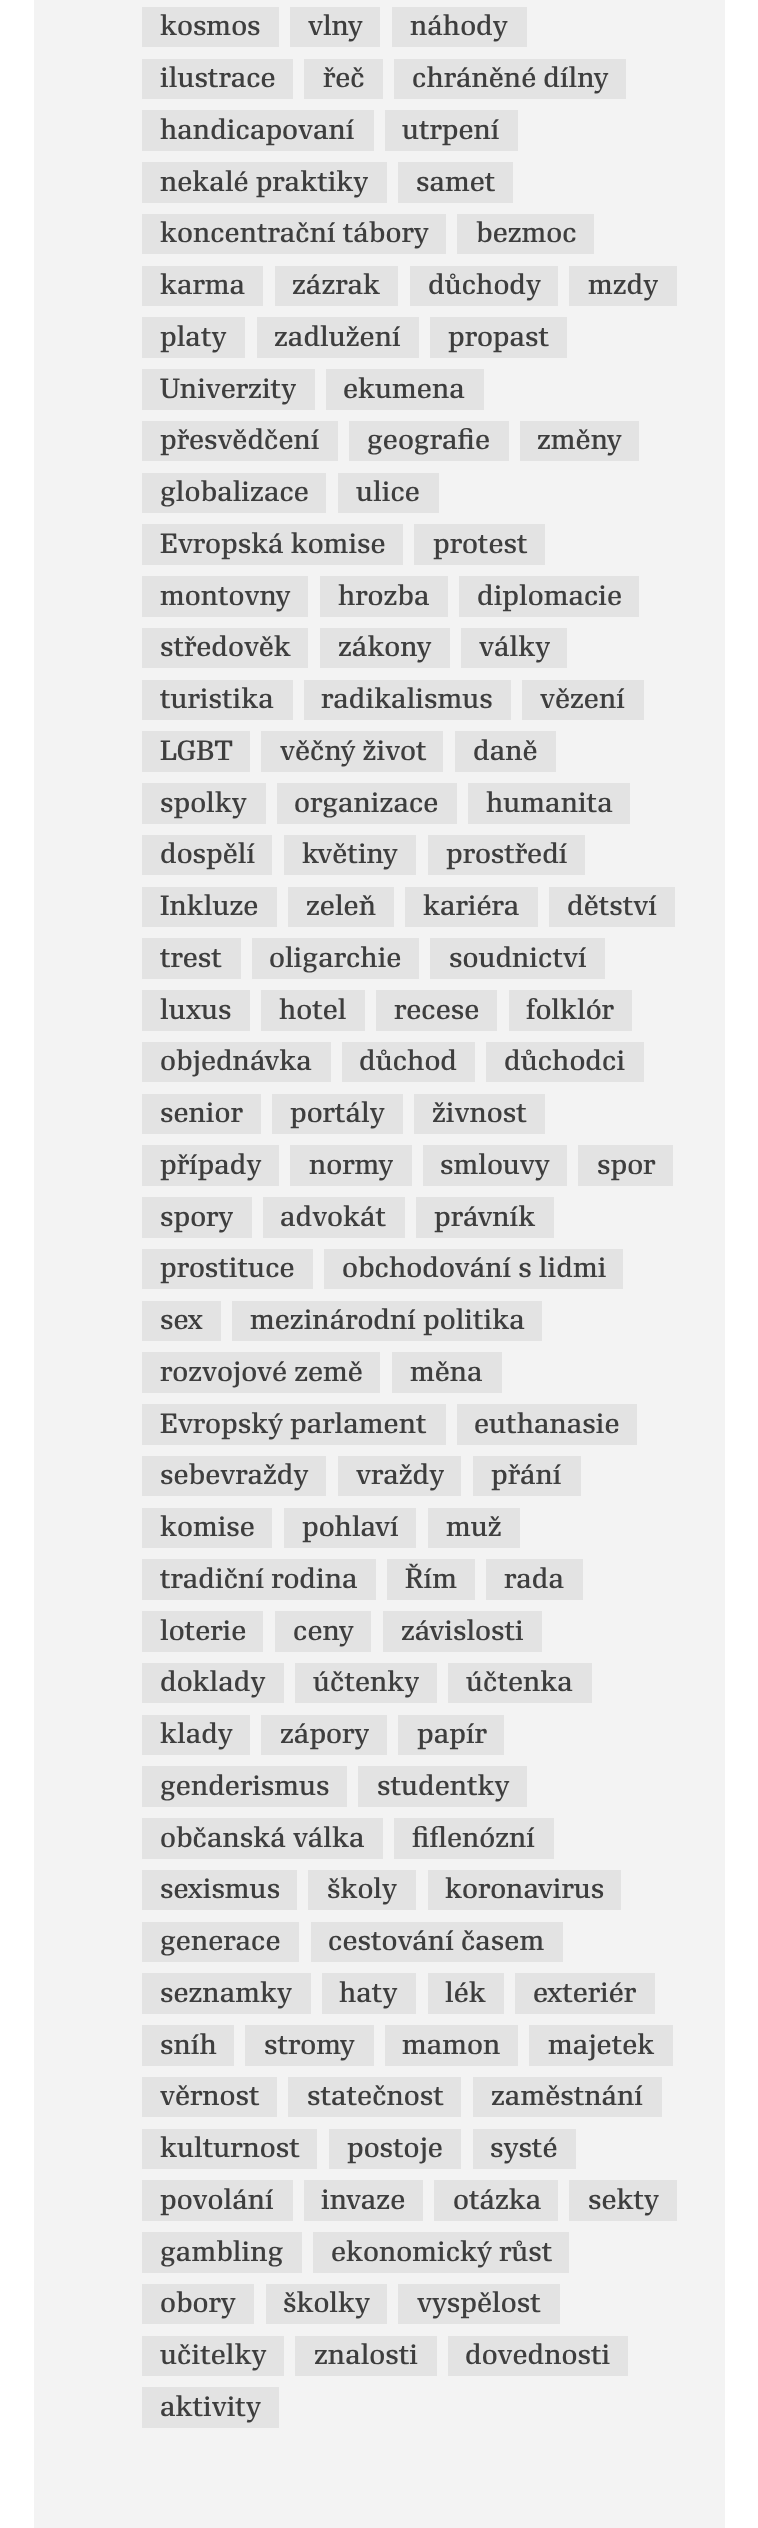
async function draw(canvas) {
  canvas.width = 758;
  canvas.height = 2528;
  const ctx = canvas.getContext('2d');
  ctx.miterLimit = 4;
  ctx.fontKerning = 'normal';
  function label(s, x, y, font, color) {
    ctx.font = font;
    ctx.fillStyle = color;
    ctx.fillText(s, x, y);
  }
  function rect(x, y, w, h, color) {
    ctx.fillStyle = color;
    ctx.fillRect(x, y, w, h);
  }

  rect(0, 0, 758, 2528, '#fff');
  rect(34, 0, 691, 2528, '#f3f3f3');
  rect(142, 7, 137, 40, '#e3e3e3');
  label('kosmos', 160, 35, '500 27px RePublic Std', '#3e3e3e');
  rect(290, 7, 90, 40, '#e3e3e3');
  label('vlny', 308, 35, '500 27px RePublic Std', '#3e3e3e');
  rect(392, 7, 135, 40, '#e3e3e3');
  label('náhody', 410, 35, '500 27px RePublic Std', '#3e3e3e');
  rect(142, 59, 151, 40, '#e3e3e3');
  label('ilustrace', 160, 87, '500 27px RePublic Std', '#3e3e3e');
  rect(304, 59, 79, 40, '#e3e3e3');
  label('řeč', 323, 87, '500 27px RePublic Std', '#3e3e3e');
  rect(394, 59, 232, 40, '#e3e3e3');
  label('chráněné dílny', 412, 87, '500 27px RePublic Std', '#3e3e3e');
  rect(142, 110, 232, 41, '#e3e3e3');
  label('handicapovaní', 160, 139, '500 27px RePublic Std', '#3e3e3e');
  rect(385, 110, 133, 41, '#e3e3e3');
  label('utrpení', 402, 139, '500 27px RePublic Std', '#3e3e3e');
  rect(142, 162, 245, 41, '#e3e3e3');
  label('nekalé praktiky', 160, 191, '500 27px RePublic Std', '#3e3e3e');
  rect(398, 162, 115, 41, '#e3e3e3');
  label('samet', 416, 191, '500 27px RePublic Std', '#3e3e3e');
  rect(142, 214, 304, 40, '#e3e3e3');
  label('koncentrační tábory', 160, 242, '500 27px RePublic Std', '#3e3e3e');
  rect(457, 214, 137, 40, '#e3e3e3');
  label('bezmoc', 476, 242, '500 27px RePublic Std', '#3e3e3e');
  rect(142, 266, 121, 40, '#e3e3e3');
  label('karma', 160, 294, '500 27px RePublic Std', '#3e3e3e');
  rect(275, 266, 123, 40, '#e3e3e3');
  label('zázrak', 292, 294, '500 27px RePublic Std', '#3e3e3e');
  rect(410, 266, 148, 40, '#e3e3e3');
  label('důchody', 428, 294, '500 27px RePublic Std', '#3e3e3e');
  rect(569, 266, 108, 40, '#e3e3e3');
  label('mzdy', 588, 294, '500 27px RePublic Std', '#3e3e3e');
  rect(142, 317, 103, 41, '#e3e3e3');
  label('platy', 160, 346, '500 27px RePublic Std', '#3e3e3e');
  rect(257, 317, 162, 41, '#e3e3e3');
  label('zadlužení', 274, 346, '500 27px RePublic Std', '#3e3e3e');
  rect(430, 317, 137, 41, '#e3e3e3');
  label('propast', 448, 346, '500 27px RePublic Std', '#3e3e3e');
  rect(142, 369, 173, 41, '#e3e3e3');
  label('Univerzity', 160, 398, '500 27px RePublic Std', '#3e3e3e');
  rect(326, 369, 158, 41, '#e3e3e3');
  label('ekumena', 343, 398, '500 27px RePublic Std', '#3e3e3e');
  rect(142, 421, 196, 40, '#e3e3e3');
  label('přesvědčení', 160, 449, '500 27px RePublic Std', '#3e3e3e');
  rect(349, 421, 160, 40, '#e3e3e3');
  label('geografie', 367, 449, '500 27px RePublic Std', '#3e3e3e');
  rect(520, 421, 119, 40, '#e3e3e3');
  label('změny', 537, 449, '500 27px RePublic Std', '#3e3e3e');
  rect(142, 473, 184, 40, '#e3e3e3');
  label('globalizace', 160, 501, '500 27px RePublic Std', '#3e3e3e');
  rect(338, 473, 101, 40, '#e3e3e3');
  label('ulice', 356, 501, '500 27px RePublic Std', '#3e3e3e');
  rect(142, 524, 261, 41, '#e3e3e3');
  label('Evropská komise', 160, 553, '500 27px RePublic Std', '#3e3e3e');
  rect(414, 524, 131, 41, '#e3e3e3');
  label('protest', 433, 553, '500 27px RePublic Std', '#3e3e3e');
  rect(142, 576, 166, 41, '#e3e3e3');
  label('montovny', 160, 605, '500 27px RePublic Std', '#3e3e3e');
  rect(320, 576, 128, 41, '#e3e3e3');
  label('hrozba', 338, 605, '500 27px RePublic Std', '#3e3e3e');
  rect(459, 576, 180, 41, '#e3e3e3');
  label('diplomacie', 477, 605, '500 27px RePublic Std', '#3e3e3e');
  rect(142, 628, 166, 40, '#e3e3e3');
  label('středověk', 160, 656, '500 27px RePublic Std', '#3e3e3e');
  rect(320, 628, 130, 40, '#e3e3e3');
  label('zákony', 338, 656, '500 27px RePublic Std', '#3e3e3e');
  rect(461, 628, 106, 40, '#e3e3e3');
  label('války', 479, 656, '500 27px RePublic Std', '#3e3e3e');
  rect(142, 680, 151, 40, '#e3e3e3');
  label('turistika', 160, 708, '500 27px RePublic Std', '#3e3e3e');
  rect(304, 680, 207, 40, '#e3e3e3');
  label('radikalismus', 321, 708, '500 27px RePublic Std', '#3e3e3e');
  rect(522, 680, 122, 40, '#e3e3e3');
  label('vězení', 540, 708, '500 27px RePublic Std', '#3e3e3e');
  rect(142, 731, 108, 41, '#e3e3e3');
  label('LGBT', 160, 760, '500 27px RePublic Std', '#3e3e3e');
  rect(261, 731, 182, 41, '#e3e3e3');
  label('věčný život', 280, 760, '500 27px RePublic Std', '#3e3e3e');
  rect(455, 731, 101, 41, '#e3e3e3');
  label('daně', 473, 760, '500 27px RePublic Std', '#3e3e3e');
  rect(142, 783, 124, 41, '#e3e3e3');
  label('spolky', 160, 812, '500 27px RePublic Std', '#3e3e3e');
  rect(277, 783, 180, 41, '#e3e3e3');
  label('organizace', 294, 812, '500 27px RePublic Std', '#3e3e3e');
  rect(468, 783, 162, 41, '#e3e3e3');
  label('humanita', 486, 812, '500 27px RePublic Std', '#3e3e3e');
  rect(142, 835, 130, 40, '#e3e3e3');
  label('dospělí', 160, 863, '500 27px RePublic Std', '#3e3e3e');
  rect(284, 835, 132, 40, '#e3e3e3');
  label('květiny', 302, 863, '500 27px RePublic Std', '#3e3e3e');
  rect(428, 835, 157, 40, '#e3e3e3');
  label('prostředí', 446, 863, '500 27px RePublic Std', '#3e3e3e');
  rect(142, 887, 135, 40, '#e3e3e3');
  label('Inkluze', 160, 915, '500 27px RePublic Std', '#3e3e3e');
  rect(288, 887, 106, 40, '#e3e3e3');
  label('zeleň', 306, 915, '500 27px RePublic Std', '#3e3e3e');
  rect(405, 887, 133, 40, '#e3e3e3');
  label('kariéra', 423, 915, '500 27px RePublic Std', '#3e3e3e');
  rect(549, 887, 126, 40, '#e3e3e3');
  label('dětství', 567, 915, '500 27px RePublic Std', '#3e3e3e');
  rect(142, 938, 99, 41, '#e3e3e3');
  label('trest', 160, 967, '500 27px RePublic Std', '#3e3e3e');
  rect(252, 938, 167, 41, '#e3e3e3');
  label('oligarchie', 269, 967, '500 27px RePublic Std', '#3e3e3e');
  rect(430, 938, 175, 41, '#e3e3e3');
  label('soudnictví', 449, 967, '500 27px RePublic Std', '#3e3e3e');
  rect(142, 990, 108, 41, '#e3e3e3');
  label('luxus', 160, 1019, '500 27px RePublic Std', '#3e3e3e');
  rect(261, 990, 104, 41, '#e3e3e3');
  label('hotel', 279, 1019, '500 27px RePublic Std', '#3e3e3e');
  rect(376, 990, 121, 41, '#e3e3e3');
  label('recese', 394, 1019, '500 27px RePublic Std', '#3e3e3e');
  rect(509, 990, 123, 41, '#e3e3e3');
  label('folklór', 526, 1019, '500 27px RePublic Std', '#3e3e3e');
  rect(142, 1042, 189, 40, '#e3e3e3');
  label('objednávka', 160, 1070, '500 27px RePublic Std', '#3e3e3e');
  rect(342, 1042, 133, 40, '#e3e3e3');
  label('důchod', 359, 1070, '500 27px RePublic Std', '#3e3e3e');
  rect(486, 1042, 158, 40, '#e3e3e3');
  label('důchodci', 504, 1070, '500 27px RePublic Std', '#3e3e3e');
  rect(142, 1094, 119, 40, '#e3e3e3');
  label('senior', 160, 1122, '500 27px RePublic Std', '#3e3e3e');
  rect(272, 1094, 131, 40, '#e3e3e3');
  label('portály', 290, 1122, '500 27px RePublic Std', '#3e3e3e');
  rect(414, 1094, 131, 40, '#e3e3e3');
  label('živnost', 432, 1122, '500 27px RePublic Std', '#3e3e3e');
  rect(142, 1145, 137, 41, '#e3e3e3');
  label('případy', 160, 1174, '500 27px RePublic Std', '#3e3e3e');
  rect(290, 1145, 122, 41, '#e3e3e3');
  label('normy', 309, 1174, '500 27px RePublic Std', '#3e3e3e');
  rect(423, 1145, 144, 41, '#e3e3e3');
  label('smlouvy', 440, 1174, '500 27px RePublic Std', '#3e3e3e');
  rect(578, 1145, 95, 41, '#e3e3e3');
  label('spor', 597, 1174, '500 27px RePublic Std', '#3e3e3e');
  rect(142, 1197, 110, 41, '#e3e3e3');
  label('spory', 160, 1226, '500 27px RePublic Std', '#3e3e3e');
  rect(263, 1197, 142, 41, '#e3e3e3');
  label('advokát', 280, 1226, '500 27px RePublic Std', '#3e3e3e');
  rect(416, 1197, 138, 41, '#e3e3e3');
  label('právník', 434, 1226, '500 27px RePublic Std', '#3e3e3e');
  rect(142, 1249, 171, 40, '#e3e3e3');
  label('prostituce', 160, 1277, '500 27px RePublic Std', '#3e3e3e');
  rect(324, 1249, 299, 40, '#e3e3e3');
  label('obchodování s lidmi', 342, 1277, '500 27px RePublic Std', '#3e3e3e');
  rect(142, 1301, 79, 40, '#e3e3e3');
  label('sex', 160, 1329, '500 27px RePublic Std', '#3e3e3e');
  rect(232, 1301, 310, 40, '#e3e3e3');
  label('mezinárodní politika', 250, 1329, '500 27px RePublic Std', '#3e3e3e');
  rect(142, 1352, 238, 41, '#e3e3e3');
  label('rozvojové země', 160, 1381, '500 27px RePublic Std', '#3e3e3e');
  rect(392, 1352, 110, 41, '#e3e3e3');
  label('měna', 410, 1381, '500 27px RePublic Std', '#3e3e3e');
  rect(142, 1404, 304, 41, '#e3e3e3');
  label('Evropský parlament', 160, 1433, '500 27px RePublic Std', '#3e3e3e');
  rect(457, 1404, 180, 41, '#e3e3e3');
  label('euthanasie', 474, 1433, '500 27px RePublic Std', '#3e3e3e');
  rect(142, 1456, 184, 40, '#e3e3e3');
  label('sebevraždy', 160, 1484, '500 27px RePublic Std', '#3e3e3e');
  rect(338, 1456, 123, 40, '#e3e3e3');
  label('vraždy', 356, 1484, '500 27px RePublic Std', '#3e3e3e');
  rect(473, 1456, 108, 40, '#e3e3e3');
  label('přání', 491, 1484, '500 27px RePublic Std', '#3e3e3e');
  rect(142, 1508, 130, 40, '#e3e3e3');
  label('komise', 160, 1536, '500 27px RePublic Std', '#3e3e3e');
  rect(284, 1508, 132, 40, '#e3e3e3');
  label('pohlaví', 302, 1536, '500 27px RePublic Std', '#3e3e3e');
  rect(428, 1508, 92, 40, '#e3e3e3');
  label('muž', 446, 1536, '500 27px RePublic Std', '#3e3e3e');
  rect(142, 1559, 234, 41, '#e3e3e3');
  label('tradiční rodina', 160, 1588, '500 27px RePublic Std', '#3e3e3e');
  rect(387, 1559, 88, 41, '#e3e3e3');
  label('Řím', 405, 1588, '500 27px RePublic Std', '#3e3e3e');
  rect(486, 1559, 97, 41, '#e3e3e3');
  label('rada', 504, 1588, '500 27px RePublic Std', '#3e3e3e');
  rect(142, 1611, 121, 41, '#e3e3e3');
  label('loterie', 160, 1640, '500 27px RePublic Std', '#3e3e3e');
  rect(275, 1611, 96, 41, '#e3e3e3');
  label('ceny', 293, 1640, '500 27px RePublic Std', '#3e3e3e');
  rect(383, 1611, 159, 41, '#e3e3e3');
  label('závislosti', 401, 1640, '500 27px RePublic Std', '#3e3e3e');
  rect(142, 1663, 142, 40, '#e3e3e3');
  label('doklady', 160, 1691, '500 27px RePublic Std', '#3e3e3e');
  rect(295, 1663, 142, 40, '#e3e3e3');
  label('účtenky', 313, 1691, '500 27px RePublic Std', '#3e3e3e');
  rect(448, 1663, 144, 40, '#e3e3e3');
  label('účtenka', 466, 1691, '500 27px RePublic Std', '#3e3e3e');
  rect(142, 1715, 108, 40, '#e3e3e3');
  label('klady', 160, 1743, '500 27px RePublic Std', '#3e3e3e');
  rect(261, 1715, 126, 40, '#e3e3e3');
  label('zápory', 280, 1743, '500 27px RePublic Std', '#3e3e3e');
  rect(398, 1715, 106, 40, '#e3e3e3');
  label('papír', 417, 1743, '500 27px RePublic Std', '#3e3e3e');
  rect(142, 1766, 205, 41, '#e3e3e3');
  label('genderismus', 160, 1795, '500 27px RePublic Std', '#3e3e3e');
  rect(358, 1766, 169, 41, '#e3e3e3');
  label('studentky', 377, 1795, '500 27px RePublic Std', '#3e3e3e');
  rect(142, 1818, 241, 41, '#e3e3e3');
  label('občanská válka', 160, 1847, '500 27px RePublic Std', '#3e3e3e');
  rect(394, 1818, 160, 41, '#e3e3e3');
  label('fiflenózní', 412, 1847, '500 27px RePublic Std', '#3e3e3e');
  rect(142, 1870, 155, 40, '#e3e3e3');
  label('sexismus', 160, 1898, '500 27px RePublic Std', '#3e3e3e');
  rect(308, 1870, 108, 40, '#e3e3e3');
  label('školy', 327, 1898, '500 27px RePublic Std', '#3e3e3e');
  rect(428, 1870, 193, 40, '#e3e3e3');
  label('koronavirus', 445, 1898, '500 27px RePublic Std', '#3e3e3e');
  rect(142, 1922, 157, 40, '#e3e3e3');
  label('generace', 160, 1950, '500 27px RePublic Std', '#3e3e3e');
  rect(311, 1922, 252, 40, '#e3e3e3');
  label('cestování časem', 328, 1950, '500 27px RePublic Std', '#3e3e3e');
  rect(142, 1973, 169, 41, '#e3e3e3');
  label('seznamky', 160, 2002, '500 27px RePublic Std', '#3e3e3e');
  rect(322, 1973, 94, 41, '#e3e3e3');
  label('haty', 339, 2002, '500 27px RePublic Std', '#3e3e3e');
  rect(428, 1973, 76, 41, '#e3e3e3');
  label('lék', 445, 2002, '500 27px RePublic Std', '#3e3e3e');
  rect(515, 1973, 140, 41, '#e3e3e3');
  label('exteriér', 533, 2002, '500 27px RePublic Std', '#3e3e3e');
  rect(142, 2025, 92, 41, '#e3e3e3');
  label('sníh', 160, 2054, '500 27px RePublic Std', '#3e3e3e');
  rect(245, 2025, 129, 41, '#e3e3e3');
  label('stromy', 264, 2054, '500 27px RePublic Std', '#3e3e3e');
  rect(385, 2025, 133, 41, '#e3e3e3');
  label('mamon', 402, 2054, '500 27px RePublic Std', '#3e3e3e');
  rect(529, 2025, 144, 41, '#e3e3e3');
  label('majetek', 548, 2054, '500 27px RePublic Std', '#3e3e3e');
  rect(142, 2077, 135, 40, '#e3e3e3');
  label('věrnost', 160, 2105, '500 27px RePublic Std', '#3e3e3e');
  rect(288, 2077, 173, 40, '#e3e3e3');
  label('statečnost', 307, 2105, '500 27px RePublic Std', '#3e3e3e');
  rect(473, 2077, 189, 40, '#e3e3e3');
  label('zaměstnání', 491, 2105, '500 27px RePublic Std', '#3e3e3e');
  rect(142, 2129, 175, 40, '#e3e3e3');
  label('kulturnost', 160, 2157, '500 27px RePublic Std', '#3e3e3e');
  rect(329, 2129, 132, 40, '#e3e3e3');
  label('postoje', 347, 2157, '500 27px RePublic Std', '#3e3e3e');
  rect(473, 2129, 103, 40, '#e3e3e3');
  label('systé', 490, 2157, '500 27px RePublic Std', '#3e3e3e');
  rect(142, 2180, 151, 41, '#e3e3e3');
  label('povolání', 160, 2209, '500 27px RePublic Std', '#3e3e3e');
  rect(304, 2180, 119, 41, '#e3e3e3');
  label('invaze', 321, 2209, '500 27px RePublic Std', '#3e3e3e');
  rect(434, 2180, 124, 41, '#e3e3e3');
  label('otázka', 453, 2209, '500 27px RePublic Std', '#3e3e3e');
  rect(569, 2180, 108, 41, '#e3e3e3');
  label('sekty', 588, 2209, '500 27px RePublic Std', '#3e3e3e');
  rect(142, 2232, 160, 41, '#e3e3e3');
  label('gambling', 160, 2261, '500 27px RePublic Std', '#3e3e3e');
  rect(313, 2232, 256, 41, '#e3e3e3');
  label('ekonomický růst', 331, 2261, '500 27px RePublic Std', '#3e3e3e');
  rect(142, 2284, 112, 40, '#e3e3e3');
  label('obory', 160, 2312, '500 27px RePublic Std', '#3e3e3e');
  rect(266, 2284, 121, 40, '#e3e3e3');
  label('školky', 283, 2312, '500 27px RePublic Std', '#3e3e3e');
  rect(398, 2284, 162, 40, '#e3e3e3');
  label('vyspělost', 417, 2312, '500 27px RePublic Std', '#3e3e3e');
  rect(142, 2336, 142, 40, '#e3e3e3');
  label('učitelky', 160, 2364, '500 27px RePublic Std', '#3e3e3e');
  rect(295, 2336, 142, 40, '#e3e3e3');
  label('znalosti', 314, 2364, '500 27px RePublic Std', '#3e3e3e');
  rect(448, 2336, 180, 40, '#e3e3e3');
  label('dovednosti', 465, 2364, '500 27px RePublic Std', '#3e3e3e');
  rect(142, 2387, 137, 41, '#e3e3e3');
  label('aktivity', 160, 2416, '500 27px RePublic Std', '#3e3e3e');
}

draw(document.querySelector('canvas'));
